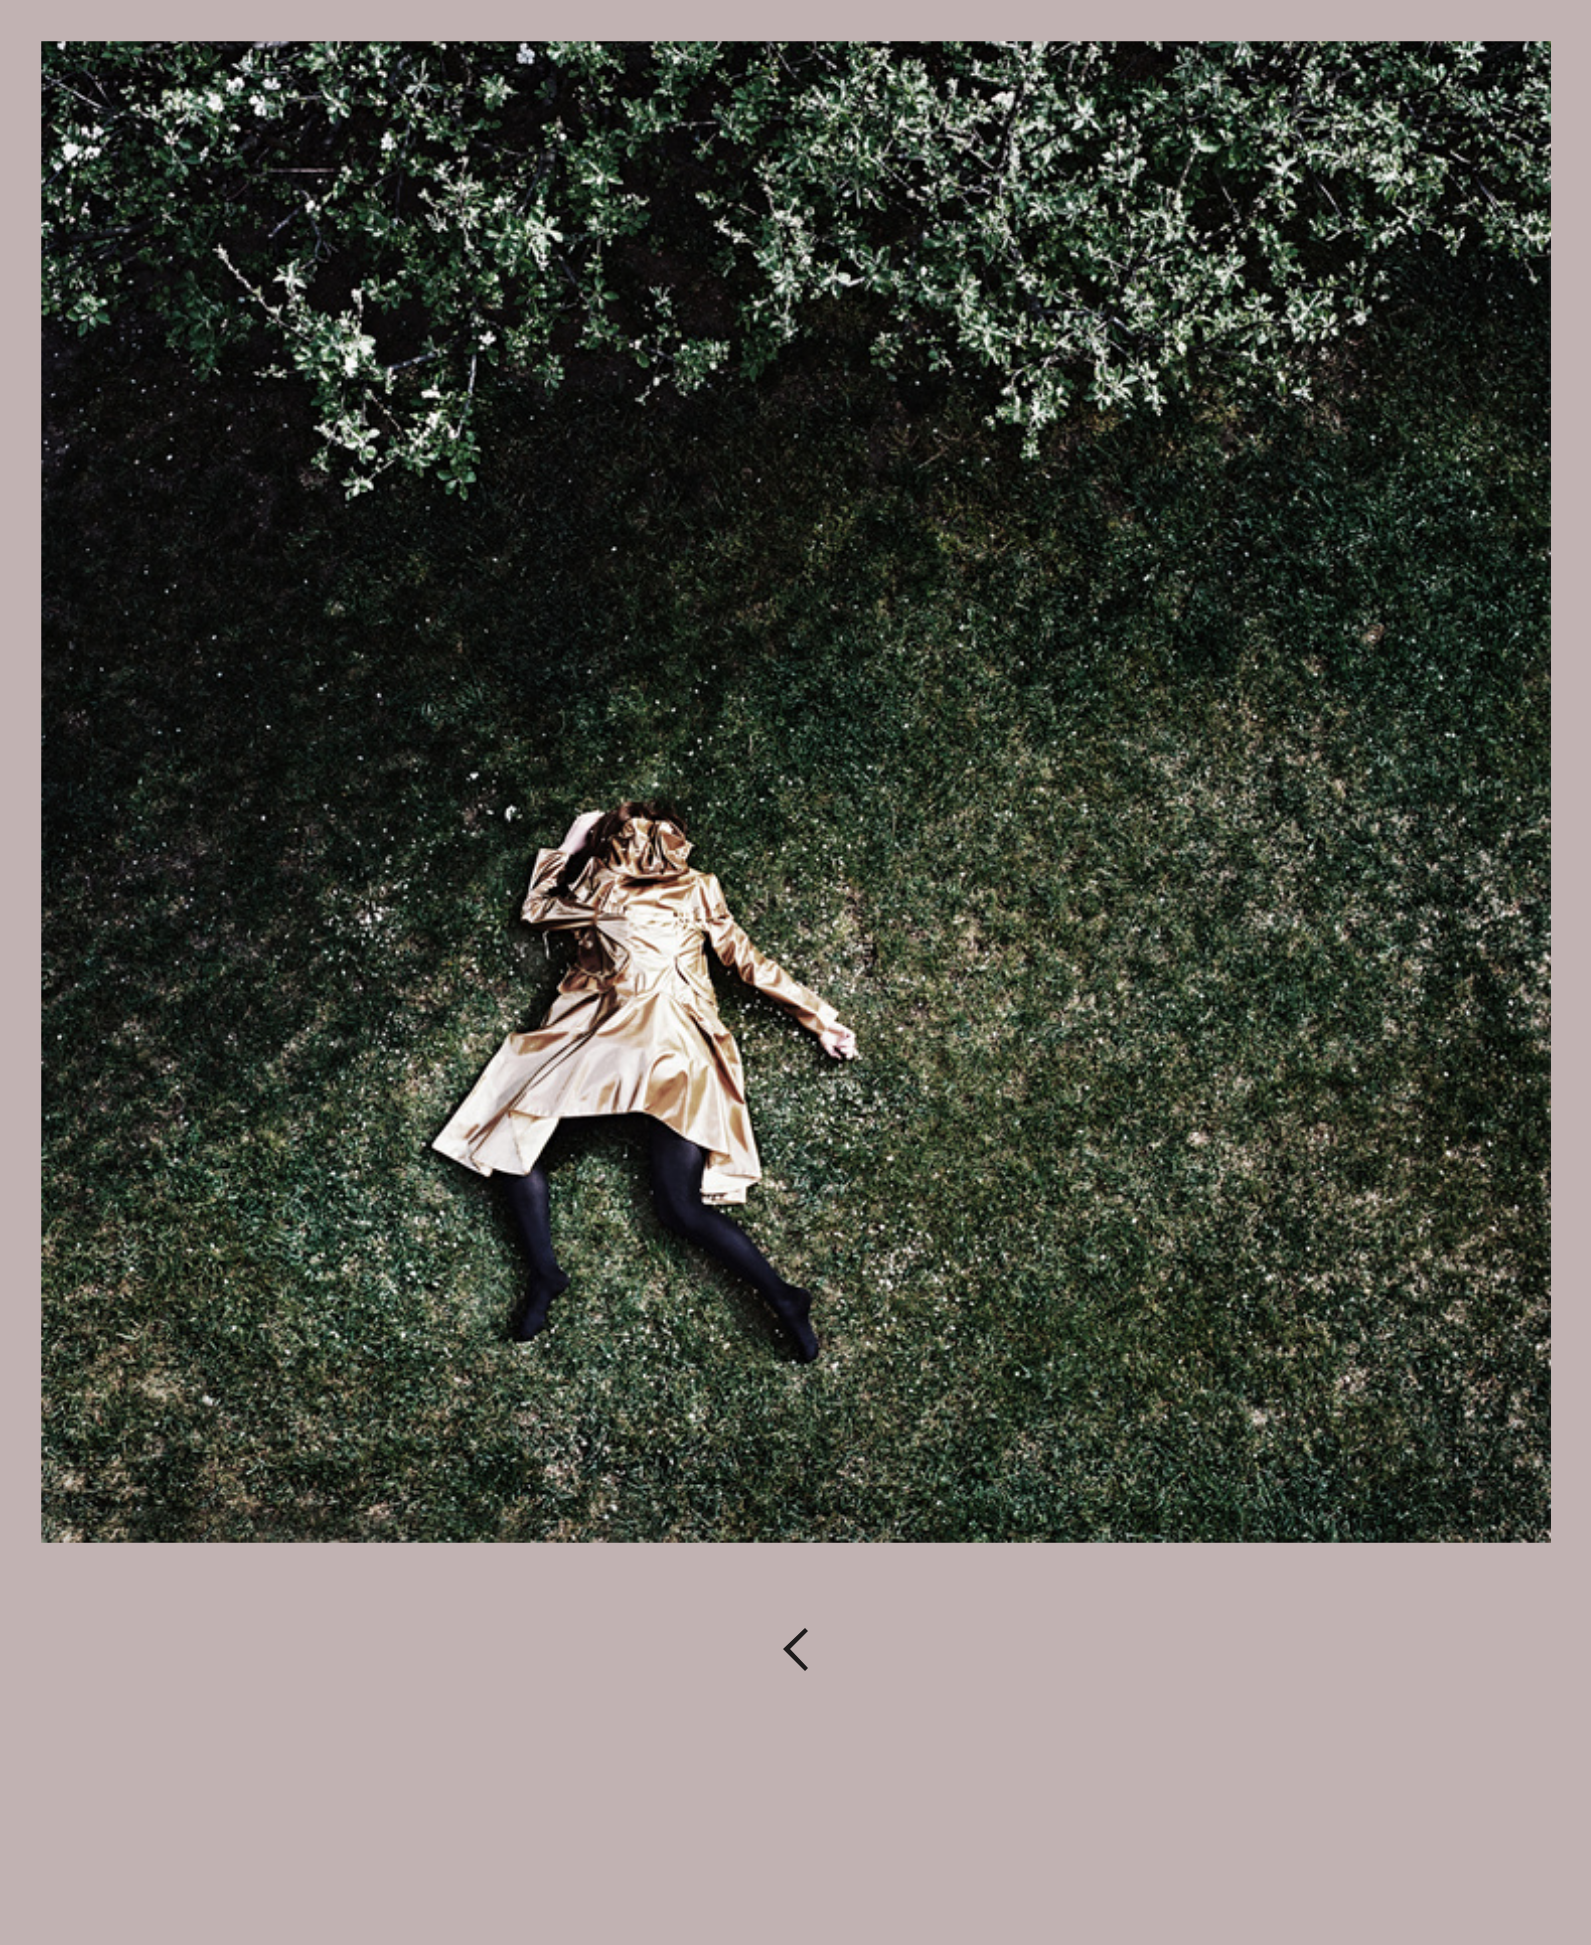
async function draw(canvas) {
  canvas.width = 1591;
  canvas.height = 1945;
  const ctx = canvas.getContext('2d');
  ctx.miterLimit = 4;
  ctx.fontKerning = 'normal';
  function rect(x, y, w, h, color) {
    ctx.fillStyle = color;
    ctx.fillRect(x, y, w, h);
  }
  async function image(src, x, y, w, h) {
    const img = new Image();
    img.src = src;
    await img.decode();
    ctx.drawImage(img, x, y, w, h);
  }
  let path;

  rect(0, 0, 1591, 1945, '#c1b2b2');
  await image('assets/img1.png', 41, 41, 1510, 1502);
  ctx.fillStyle = '#1d1b1b';
  path = new Path2D('M808 1668L790 1649L808 1631L805 1628L783 1649L805 1671Z');
  ctx.fill(path);
}

draw(document.querySelector('canvas'));
